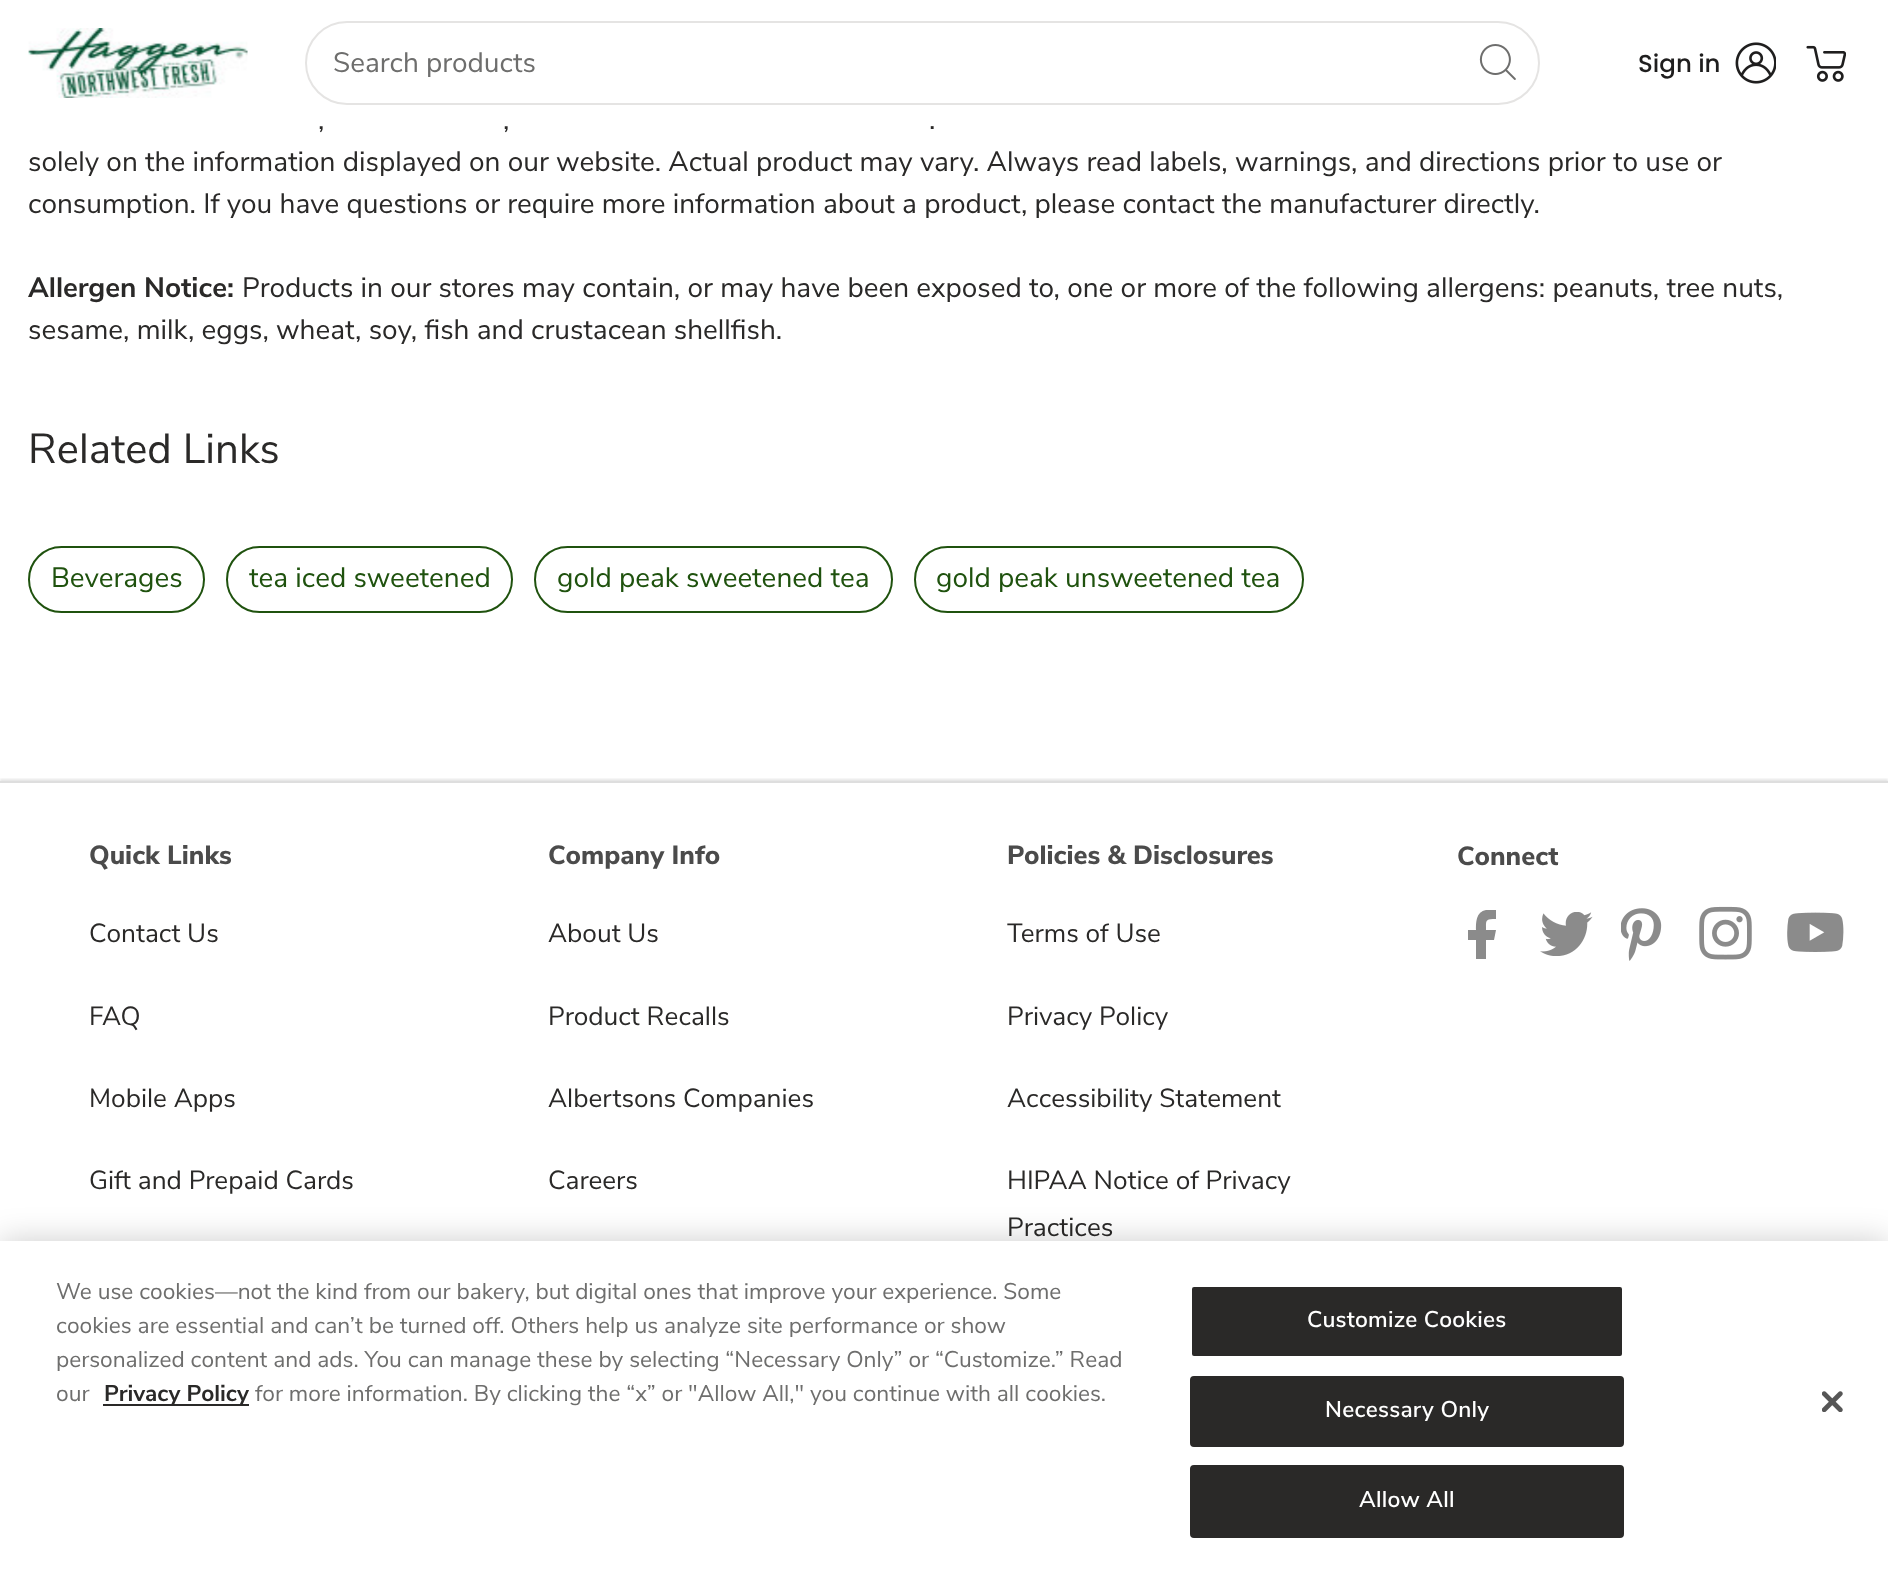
async function draw(canvas) {
  canvas.width = 1888;
  canvas.height = 1572;
  const ctx = canvas.getContext('2d');
  ctx.miterLimit = 4;
  ctx.fontKerning = 'normal';
  function label(s, x, y, font, color) {
    ctx.font = font;
    ctx.fillStyle = color;
    ctx.fillText(s, x, y);
  }
  function rect(x, y, w, h, color) {
    ctx.fillStyle = color;
    ctx.fillRect(x, y, w, h);
  }
  async function image(src, x, y, w, h) {
    const img = new Image();
    img.src = src;
    await img.decode();
    ctx.drawImage(img, x, y, w, h);
  }
  let path;

  rect(0, 0, 1888, 1572, '#fff');
  await image('assets/img1.png', 28, 28, 220, 70);
  ctx.beginPath();
  ctx.roundRect(306, 22, 1233, 82, 41);
  ctx.strokeStyle = '#e5e4e3';
  ctx.lineWidth = 2;
  ctx.stroke();
  label('Search products', 333, 72, '28px Nunito Sans', '#6e6e6d');
  await image('assets/img2.png', 1479, 44, 37, 36);
  label('Sign in', 1638, 72, '500 24.5px Poppins', '#1f1e1e');
  await image('assets/img3.png', 1735, 42, 41, 42);
  await image('assets/img4.png', 1806, 45, 40, 37);
  label(',', 318, 129, '28px Nunito Sans', '#2a2928');
  label(',', 503, 129, '28px Nunito Sans', '#2a2928');
  label('.', 929, 129, '28px Nunito Sans', '#2a2928');
  label('solely on the information displayed on our website. Actual product may vary. Always read labels, warnings, and directions prior to use or', 28, 171, '28px Nunito Sans', '#2a2928');
  label('consumption. If you have questions or require more information about a product, please contact the manufacturer directly.', 28, 213, '28px Nunito Sans', '#2a2928');
  label('Allergen Notice:', 28, 297, 'bold 28px Nunito Sans', '#2a2928');
  label('Products in our stores may contain, or may have been exposed to, one or more of the following allergens: peanuts, tree nuts,', 242, 297, '28px Nunito Sans', '#2a2928');
  label('sesame, milk, eggs, wheat, soy, fish and crustacean shellfish.', 28, 339, '28px Nunito Sans', '#2a2928');
  label('Related Links', 28, 463, '42px Nunito Sans', '#2a2928');
  ctx.beginPath();
  ctx.roundRect(29, 547, 175, 65, 32.5);
  ctx.strokeStyle = '#1f520e';
  ctx.stroke();
  label('Beverages', 51, 587, '28px Nunito Sans', '#1f520e');
  ctx.beginPath();
  ctx.roundRect(227, 547, 285, 65, 32.5);
  ctx.stroke();
  label('tea iced sweetened', 249, 587, '28px Nunito Sans', '#1f520e');
  ctx.beginPath();
  ctx.roundRect(535, 547, 357, 65, 32.5);
  ctx.stroke();
  label('gold peak sweetened tea', 557, 587, '28px Nunito Sans', '#1f520e');
  ctx.beginPath();
  ctx.roundRect(915, 547, 388, 65, 32.5);
  ctx.stroke();
  label('gold peak unsweetened tea', 936, 587, '28px Nunito Sans', '#1f520e');
  ctx.save();
  ctx.beginPath();
  ctx.rect(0, 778, 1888, 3);
  ctx.clip();
  ctx.fillStyle = '#0000001a';
  ctx.filter = 'blur(1px)';
  ctx.beginPath();
  ctx.rect(0, 779, 1888, 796);
  ctx.fill();
  ctx.filter = 'none';
  ctx.restore();
  rect(0, 781, 1888, 2, '#dedede');
  label('Quick Links', 89, 864, '800 26.25px Nunito Sans', '#4b4b4b');
  label('Contact Us', 89, 942, '26.25px Nunito Sans', '#2a2928');
  label('FAQ', 89, 1025, '26.25px Nunito Sans', '#2a2928');
  label('Mobile Apps', 89, 1107, '26.25px Nunito Sans', '#2a2928');
  label('Gift and Prepaid Cards', 89, 1189, '26.25px Nunito Sans', '#2a2928');
  label('Company Info', 548, 864, '800 26.25px Nunito Sans', '#4b4b4b');
  label('About Us', 548, 942, '26.25px Nunito Sans', '#2a2928');
  label('Product Recalls', 548, 1025, '26.25px Nunito Sans', '#2a2928');
  label('Albertsons Companies', 548, 1107, '26.25px Nunito Sans', '#2a2928');
  label('Careers', 548, 1189, '26.25px Nunito Sans', '#2a2928');
  label('Policies & Disclosures', 1007, 864, '800 26.25px Nunito Sans', '#4b4b4b');
  label('Terms of Use', 1007, 942, '26.25px Nunito Sans', '#2a2928');
  label('Privacy Policy', 1007, 1025, '26.25px Nunito Sans', '#2a2928');
  label('Accessibility Statement', 1007, 1107, '26.25px Nunito Sans', '#2a2928');
  label('HIPAA Notice of Privacy', 1007, 1189, '26.25px Nunito Sans', '#2a2928');
  label('Practices', 1007, 1236, '26.25px Nunito Sans', '#2a2928');
  label('Connect', 1457, 865, '800 26.25px Nunito Sans', '#4b4b4b');
  ctx.save();
  ctx.beginPath();
  ctx.rect(1468, 910, 44, 49);
  ctx.clip();
  ctx.fillStyle = '#8b8b8b';
  path = new Path2D('M1476 965H1486V940H1494L1496 930H1486C1486 920 1485 919 1496 919V910H1486C1476 912 1476 922 1476 930H1468V940H1476Z');
  ctx.fill(path);
  ctx.restore();
  await image('assets/img5.png', 1540, 912, 53, 44);
  await image('assets/img6.png', 1621, 908, 41, 53);
  await image('assets/img7.png', 1699, 906, 53, 54);
  await image('assets/img8.png', 1787, 912, 57, 40);
  ctx.fillStyle = '#00000033';
  ctx.filter = 'blur(16px)';
  ctx.beginPath();
  ctx.rect(0, 1241, 1888, 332);
  ctx.fill();
  ctx.filter = 'none';
  rect(0, 1241, 1888, 331, '#fff');
  label('We use cookies—not the kind from our bakery, but digital ones that improve your experience. Some', 56, 1299, '22.75px Nunito Sans', '#6e6e6d');
  label('cookies are essential and can’t be turned off. Others help us analyze site performance or show', 56, 1333, '22.75px Nunito Sans', '#6e6e6d');
  label('personalized content and ads. You can manage these by selecting “Necessary Only” or “Customize.” Read', 56, 1367, '22.75px Nunito Sans', '#6e6e6d');
  label('our', 56, 1401, '22.75px Nunito Sans', '#6e6e6d');
  rect(103, 1404, 146, 2, '#2a2928');
  label('Privacy Policy', 104, 1401, 'bold 22.75px Nunito Sans', '#2a2928');
  label('for more information. By clicking the “x” or "Allow All," you continue with all cookies.', 255, 1401, '22.75px Nunito Sans', '#6e6e6d');
  ctx.fillStyle = '#2a2928';
  ctx.beginPath();
  ctx.roundRect(1191, 1286, 432, 71, 3);
  ctx.fill();
  ctx.strokeStyle = '#fff';
  ctx.stroke();
  ctx.letterSpacing = '0.25px';
  label('Customize Cookies', 1307, 1327, '600 22.75px Nunito Sans', '#fff');
  ctx.fillStyle = '#2a2928';
  ctx.beginPath();
  ctx.roundRect(1191, 1377, 432, 69, 3);
  ctx.fill();
  ctx.strokeStyle = '#2a2928';
  ctx.stroke();
  label('Necessary Only', 1325, 1417, '600 22.75px Nunito Sans', '#fff');
  ctx.fillStyle = '#2a2928';
  ctx.beginPath();
  ctx.roundRect(1191, 1466, 432, 71, 3);
  ctx.fill();
  ctx.stroke();
  label('Allow All', 1359, 1507, '600 22.75px Nunito Sans', '#fff');
  await image('assets/img9.png', 1822, 1391, 21, 21);
}

draw(document.querySelector('canvas'));
